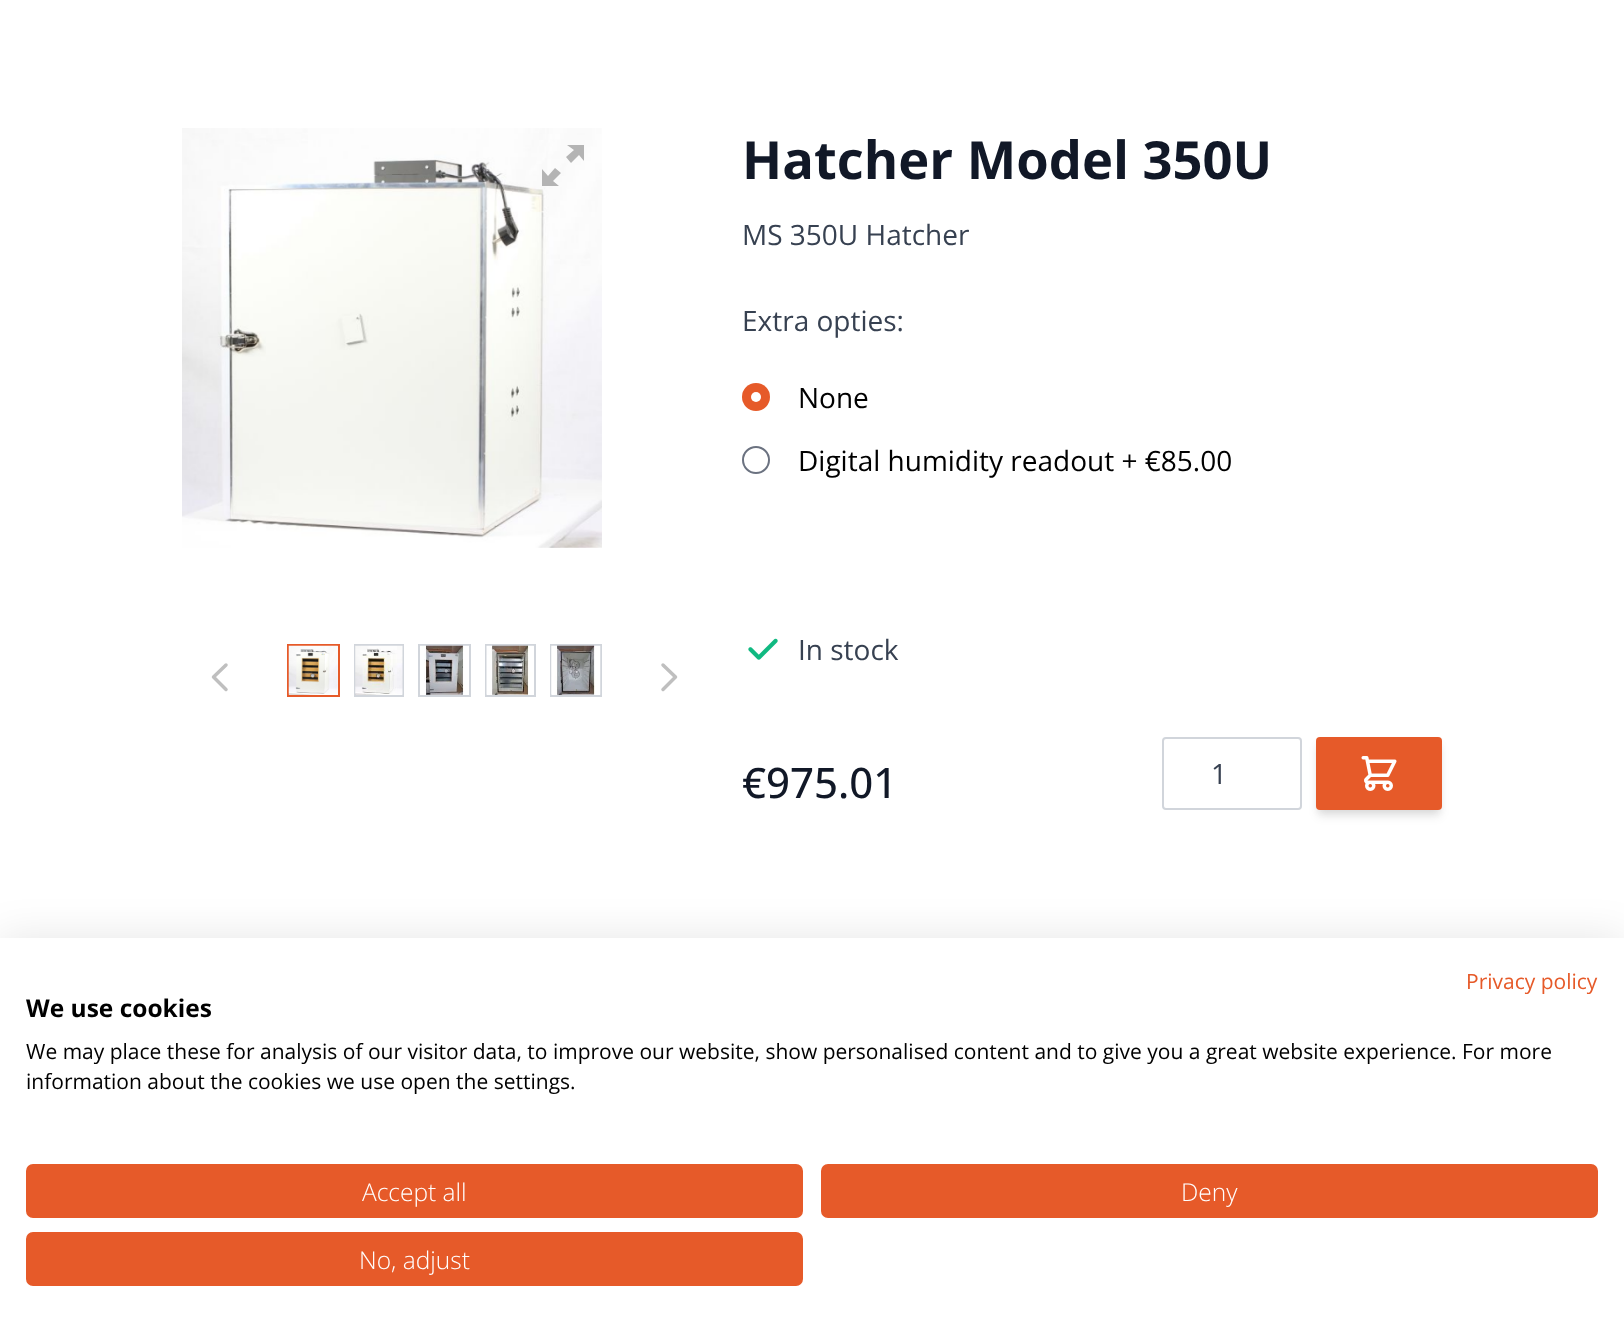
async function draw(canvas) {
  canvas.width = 1624;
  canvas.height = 1333;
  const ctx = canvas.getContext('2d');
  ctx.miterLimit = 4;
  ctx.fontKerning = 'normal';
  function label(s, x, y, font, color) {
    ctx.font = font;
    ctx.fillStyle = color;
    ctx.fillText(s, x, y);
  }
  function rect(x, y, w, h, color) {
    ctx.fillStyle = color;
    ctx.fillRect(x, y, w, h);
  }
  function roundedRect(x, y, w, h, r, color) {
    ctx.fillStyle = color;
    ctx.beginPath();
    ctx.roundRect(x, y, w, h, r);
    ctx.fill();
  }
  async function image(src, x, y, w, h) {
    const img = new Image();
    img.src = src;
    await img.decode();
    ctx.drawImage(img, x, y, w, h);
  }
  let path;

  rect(0, 0, 1624, 1333, '#fff');
  await image('assets/img1.png', 182, 128, 420, 420);
  ctx.fillStyle = '#b4b4b4';
  path = new Path2D('M567 145H584V161L579 155L571 163L566 157L574 150ZM555 168L561 173L553 181L559 186H542V169L548 176Z');
  ctx.fill(path);
  path = new Path2D('M226 689.5L213.5 677L226 665');
  ctx.strokeStyle = '#bfbfbf';
  ctx.lineWidth = 3.5;
  ctx.lineCap = 'round';
  ctx.lineJoin = 'round';
  ctx.stroke(path);
  ctx.strokeStyle = '#e65a29';
  ctx.lineWidth = 2;
  ctx.lineJoin = 'miter';
  ctx.strokeRect(288, 645, 51, 51);
  await image('assets/img2.png', 288, 645, 50, 50);
  ctx.strokeStyle = '#d1d5db';
  ctx.strokeRect(355, 645, 48, 51);
  await image('assets/img3.png', 355, 645, 48, 50);
  ctx.strokeRect(419, 645, 51, 51);
  await image('assets/img4.png', 420, 645, 49, 50);
  ctx.strokeRect(486, 645, 49, 51);
  await image('assets/img5.png', 486, 645, 48, 50);
  ctx.strokeRect(551, 645, 50, 51);
  await image('assets/img6.png', 551, 645, 50, 50);
  path = new Path2D('M663 665L675.5 677L663 689.5');
  ctx.strokeStyle = '#bfbfbf';
  ctx.lineWidth = 3.5;
  ctx.lineJoin = 'round';
  ctx.stroke(path);
  label('Hatcher Model 350U', 742, 179, 'bold 52.5px Open Sans', '#111827');
  label('MS 350U Hatcher', 742, 245, '28px Open Sans', '#374151');
  label('Extra opties:', 742, 331, '28px Open Sans', '#374151');
  ctx.fillStyle = '#e65a29';
  ctx.beginPath();
  ctx.arc(756, 397, 14, 0, 2 * Math.PI);
  ctx.fill();
  ctx.fillStyle = '#fff';
  ctx.beginPath();
  ctx.arc(756, 397, 5, 0, 2 * Math.PI);
  ctx.fill();
  label('None', 798, 408, '28px Open Sans', '#000');
  ctx.beginPath();
  ctx.arc(756, 460, 13, 0, 2 * Math.PI);
  ctx.strokeStyle = '#6b7280';
  ctx.lineWidth = 2;
  ctx.stroke();
  label('Digital humidity readout + €85.00', 798, 471, '28px Open Sans', '#000');
  await image('assets/img7.png', 748, 638, 30, 22);
  label('In stock', 798, 660, '28px Open Sans', '#374151');
  label('€975.01', 742, 798, '500 42px Open Sans', '#111827');
  ctx.beginPath();
  ctx.roundRect(1163, 738, 138, 71, 3);
  ctx.strokeStyle = '#d1d5db';
  ctx.lineJoin = 'miter';
  ctx.stroke();
  label('1', 1211, 784, '28px Open Sans', '#374151');
  ctx.fillStyle = '#0000000f';
  ctx.filter = 'blur(3.5px)';
  ctx.beginPath();
  ctx.roundRect(1318, 742, 122, 70, 2);
  ctx.fill();
  ctx.filter = 'none';
  ctx.fillStyle = '#0000001a';
  ctx.filter = 'blur(5px)';
  ctx.beginPath();
  ctx.roundRect(1318, 746, 122, 70, 2);
  ctx.fill();
  ctx.filter = 'none';
  roundedRect(1316, 737, 126, 73, 4, '#e65a29');
  await image('assets/img8.png', 1361, 756, 36, 35);
  ctx.fillStyle = '#0000001a';
  ctx.filter = 'blur(21px)';
  ctx.beginPath();
  ctx.rect(0, 938, 1624, 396);
  ctx.fill();
  ctx.filter = 'none';
  rect(0, 938, 1624, 395, '#fff');
  label('Privacy policy', 1466, 989, '21px Open Sans', '#e65a29');
  label('We use cookies', 26, 1017, 'bold 24.5px Open Sans', '#000');
  label('We may place these for analysis of our visitor data, to improve our website, show personalised content and to give you a great website experience. For more', 26, 1059, '21px Open Sans', '#000');
  label('information about the cookies we use open the settings.', 26, 1089, '21px Open Sans', '#000');
  ctx.fillStyle = '#e65a29';
  ctx.beginPath();
  ctx.roundRect(27, 1165, 775, 52, 6);
  ctx.fill();
  ctx.strokeStyle = '#e65a29';
  ctx.stroke();
  label('Accept all', 362, 1201, '300 24.5px Open Sans', '#fff');
  ctx.fillStyle = '#e65a29';
  ctx.beginPath();
  ctx.roundRect(822, 1165, 775, 52, 6);
  ctx.fill();
  ctx.stroke();
  label('Deny', 1181, 1201, '300 24.5px Open Sans', '#fff');
  ctx.fillStyle = '#e65a29';
  ctx.beginPath();
  ctx.roundRect(27, 1233, 775, 52, 6);
  ctx.fill();
  ctx.stroke();
  label('No, adjust', 359, 1269, '300 24.5px Open Sans', '#fff');
}

draw(document.querySelector('canvas'));
